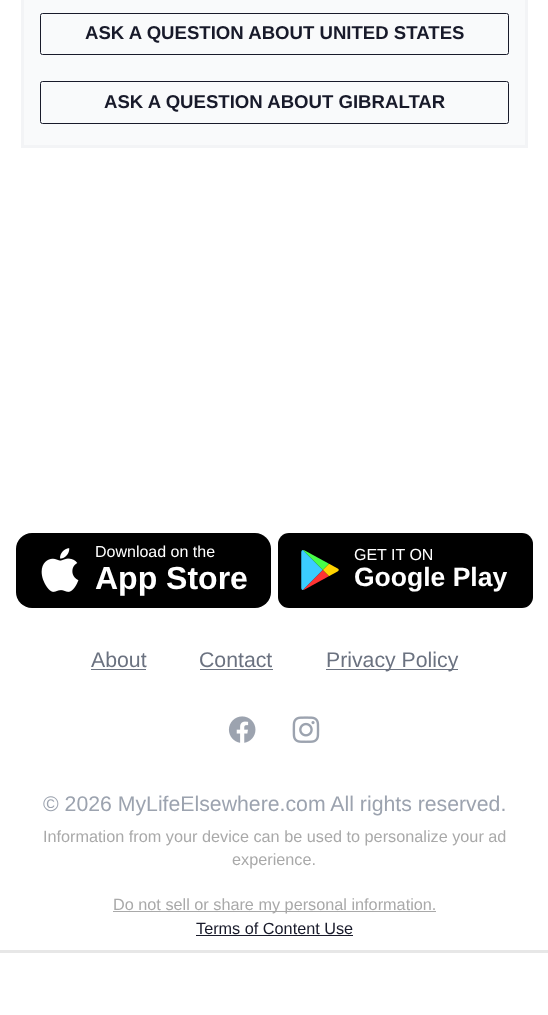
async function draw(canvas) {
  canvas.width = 548;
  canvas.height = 1015;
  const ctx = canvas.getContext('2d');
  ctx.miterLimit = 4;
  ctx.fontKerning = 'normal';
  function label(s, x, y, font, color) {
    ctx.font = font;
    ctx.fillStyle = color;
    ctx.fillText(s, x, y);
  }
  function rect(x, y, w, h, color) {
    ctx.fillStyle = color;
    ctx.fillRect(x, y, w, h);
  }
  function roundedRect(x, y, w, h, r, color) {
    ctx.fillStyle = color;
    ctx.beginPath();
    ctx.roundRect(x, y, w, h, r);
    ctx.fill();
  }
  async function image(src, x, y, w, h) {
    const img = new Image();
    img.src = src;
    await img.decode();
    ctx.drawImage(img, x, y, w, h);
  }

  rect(0, 0, 548, 1015, '#fff');
  ctx.fillStyle = '#f9fafb';
  ctx.beginPath();
  ctx.rect(22.5, -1.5, 504, 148);
  ctx.fill();
  ctx.strokeStyle = '#f3f4f6';
  ctx.lineWidth = 3;
  ctx.stroke();
  ctx.beginPath();
  ctx.roundRect(40.5, 13.5, 468, 41, 2);
  ctx.strokeStyle = '#181a2a';
  ctx.lineWidth = 1;
  ctx.stroke();
  label('ASK A QUESTION ABOUT UNITED STATES', 85, 39, 'bold 18.6px Liberation Sans', '#181a2a');
  ctx.beginPath();
  ctx.roundRect(40.5, 81.5, 468, 42, 2);
  ctx.stroke();
  label('ASK A QUESTION ABOUT GIBRALTAR', 104, 108, 'bold 18.6px Liberation Sans', '#181a2a');
  roundedRect(16, 533, 255, 75, 16, '#000');
  await image('assets/img1.png', 41, 548, 38, 44);
  label('Download on the', 95, 557, '16px Liberation Sans', '#fff');
  label('App Store', 95, 589, 'bold 32px Liberation Sans', '#fff');
  roundedRect(278, 533, 255, 75, 11, '#000');
  await image('assets/img2.png', 301, 550, 38, 40);
  label('GET IT ON', 354, 560, '16px Liberation Sans', '#fff');
  label('Google Play', 354, 586, 'bold 26.5px Liberation Sans', '#fff');
  label('About', 91, 667, '21.25px Liberation Sans', '#6b7280');
  rect(91, 669, 55, 1, '#6b7280');
  label('Contact', 199, 667, '21.25px Liberation Sans', '#6b7280');
  rect(200, 669, 73, 1, '#6b7280');
  rect(326, 669, 132, 1, '#6b7280');
  label('Privacy Policy', 326, 667, '21.25px Liberation Sans', '#6b7280');
  await image('assets/img3.png', 228, 716, 28, 27);
  await image('assets/img4.png', 292, 716, 28, 27);
  label('© 2026 MyLifeElsewhere.com All rights reserved.', 43, 811, '21.25px Liberation Sans', '#9ca3af');
  label('Information from your device can be used to personalize your ad', 43, 842, '16.25px Liberation Sans', '#a9a9a9');
  label('experience.', 232, 865, '16.25px Liberation Sans', '#a9a9a9');
  rect(113, 911, 323, 1, '#a9a9a9');
  label('Do not sell or share my personal information.', 113, 910, '16.25px Liberation Sans', '#a9a9a9');
  label('Terms of Content Use', 196, 934, '16.25px Liberation Sans', '#181a2a');
  rect(196, 935, 157, 1, '#181a2a');
  rect(0, 950, 548, 3, '#e7e7e7');
}

draw(document.querySelector('canvas'));
